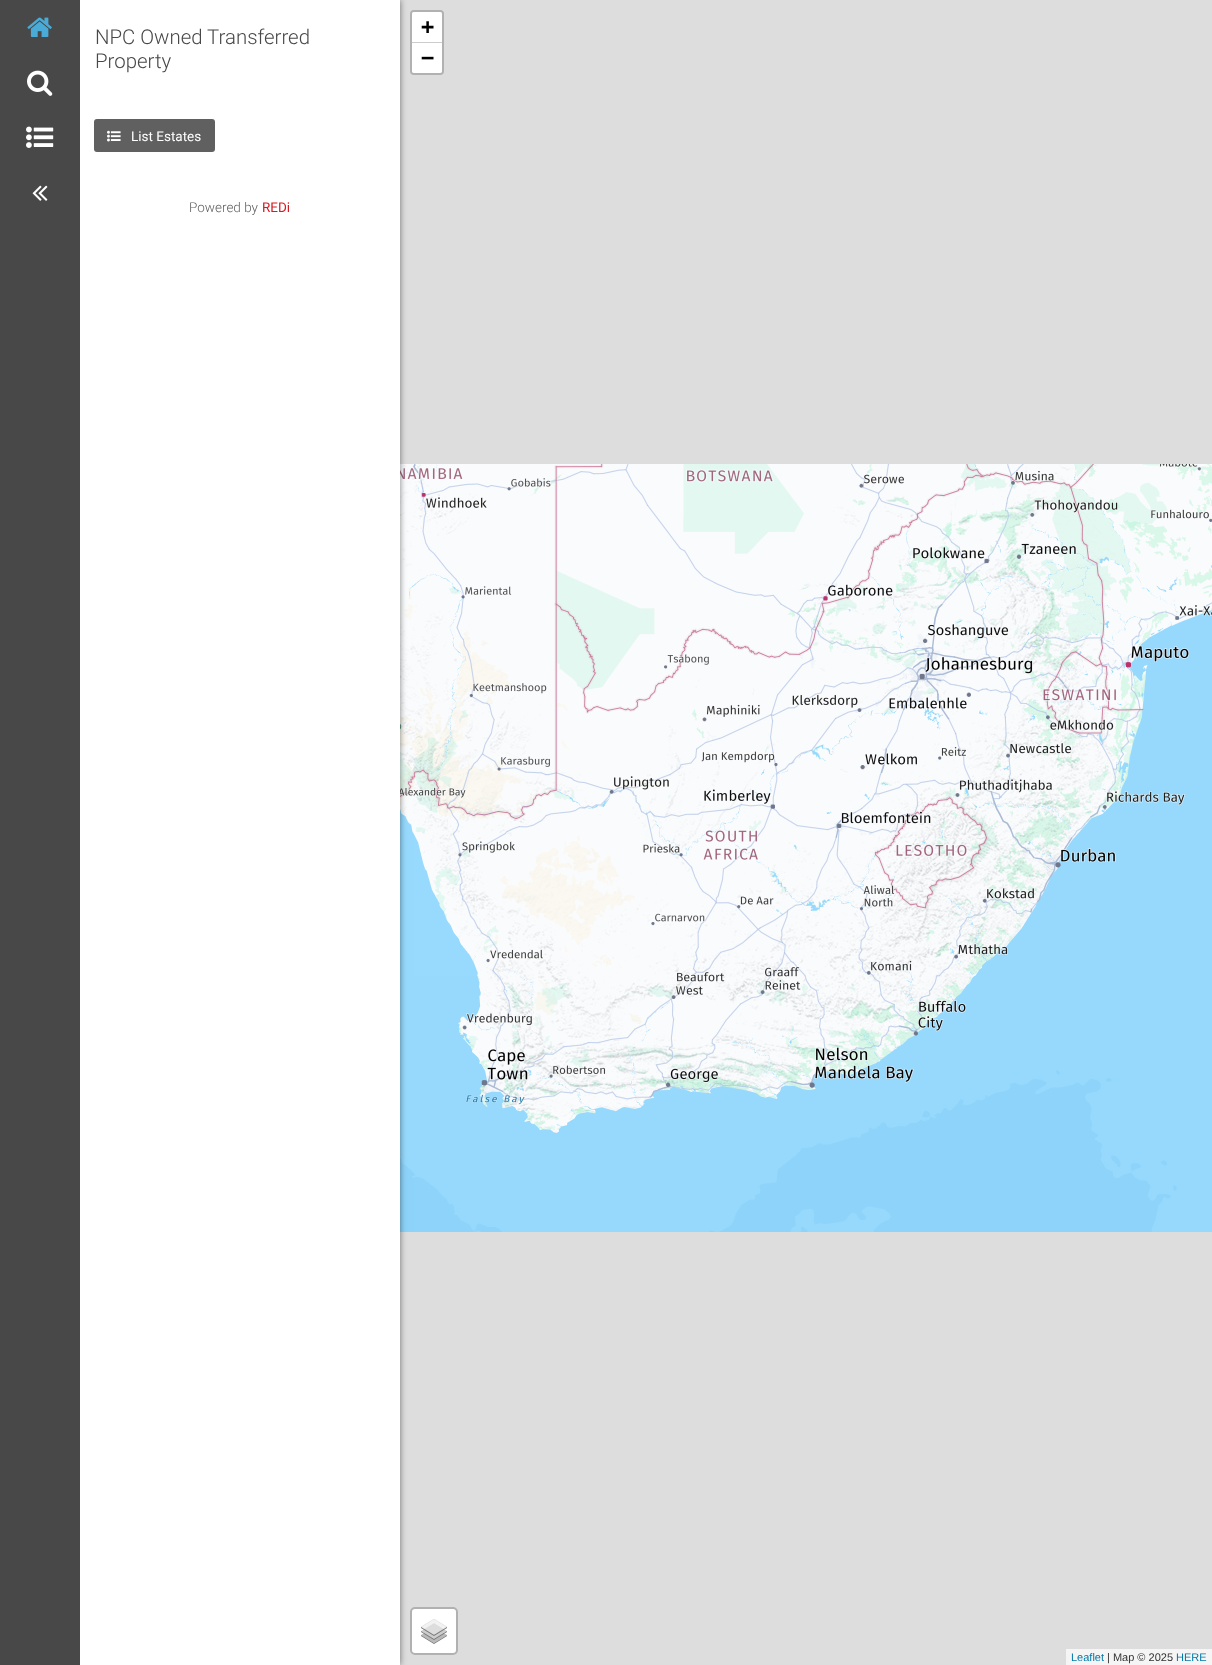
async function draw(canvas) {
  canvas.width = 1212;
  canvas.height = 1665;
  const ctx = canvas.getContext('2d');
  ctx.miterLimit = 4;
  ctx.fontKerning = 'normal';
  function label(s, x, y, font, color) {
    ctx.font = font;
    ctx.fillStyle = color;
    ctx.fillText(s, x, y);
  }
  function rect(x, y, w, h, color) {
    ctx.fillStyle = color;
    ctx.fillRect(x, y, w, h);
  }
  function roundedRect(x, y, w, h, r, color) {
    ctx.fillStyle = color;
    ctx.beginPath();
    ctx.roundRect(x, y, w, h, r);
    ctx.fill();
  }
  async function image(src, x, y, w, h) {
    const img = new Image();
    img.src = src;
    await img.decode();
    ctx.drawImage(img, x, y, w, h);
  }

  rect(0, 0, 1212, 1665, '#ddd');
  await image('assets/img7.png', 400, 464, 14, 256);
  await image('assets/img12.png', 400, 720, 14, 256);
  await image('assets/img17.png', 400, 976, 14, 256);
  ctx.fillStyle = '#00000080';
  ctx.filter = 'blur(3px)';
  ctx.beginPath();
  ctx.rect(80, 0, 320, 1665);
  ctx.fill();
  ctx.filter = 'none';
  rect(0, 0, 80, 1665, '#484848');
  await image('assets/img1.png', 27, 17, 25, 20);
  await image('assets/img2.png', 27, 70, 26, 26);
  await image('assets/img3.png', 26, 126, 28, 22);
  await image('assets/img4.png', 32, 185, 16, 16);
  rect(80, 0, 320, 1665, '#fff');
  label('NPC Owned Transferred', 95, 44, '300 20.4px Roboto', '#484848');
  label('Property', 95, 68, '300 20.4px Roboto', '#484848');
  roundedRect(94, 119, 121, 33, 3, '#606060');
  await image('assets/img5.png', 107, 130, 14, 12);
  label('List Estates', 131, 141, '13.5px Roboto', '#fff');
  label('Powered by', 189, 212, '300 13.5px Roboto', '#606060');
  label('REDi', 262, 212, '13.5px Roboto', '#d71920');
  ctx.beginPath();
  ctx.roundRect(411, 11, 32, 63, 3);
  ctx.strokeStyle = '#b1b1b1';
  ctx.lineWidth = 2;
  ctx.stroke();
  ctx.fillStyle = '#fff';
  ctx.beginPath();
  ctx.roundRect(412, 12, 30, 31, [2, 2, 0, 0]);
  ctx.fill();
  rect(412, 42, 30, 1, '#ccc');
  label('+', 421, 34, 'bold 22px DejaVu Sans Mono', '#000');
  ctx.fillStyle = '#fff';
  ctx.beginPath();
  ctx.roundRect(412, 43, 30, 30, [0, 0, 2, 2]);
  ctx.fill();
  label('−', 421, 65, 'bold 22px DejaVu Sans Mono', '#000');
  ctx.fillStyle = '#fff';
  ctx.beginPath();
  ctx.roundRect(411, 1608, 46, 46, 4);
  ctx.fill();
  ctx.stroke();
  await image('assets/img6.png', 421, 1619, 26, 25);
  rect(1066, 1649, 146, 16, '#f5f5f5');
  label('Leaflet', 1071, 1661, '11px Liberation Sans', '#0078a8');
  label('| Map © 2025', 1107, 1661, '11px Liberation Sans', '#333');
  label('HERE', 1176, 1661, '11px Liberation Sans', '#0078a8');
  await image('assets/img8.png', 414, 464, 256, 256);
  await image('assets/img9.png', 670, 464, 256, 256);
  await image('assets/img10.png', 926, 464, 256, 256);
  await image('assets/img11.png', 1182, 464, 30, 256);
  await image('assets/img13.png', 414, 720, 256, 256);
  await image('assets/img14.png', 670, 720, 256, 256);
  await image('assets/img15.png', 926, 720, 256, 256);
  await image('assets/img16.png', 1182, 720, 30, 256);
  await image('assets/img18.png', 414, 976, 256, 256);
  await image('assets/img19.png', 670, 976, 256, 256);
  await image('assets/img20.png', 926, 976, 256, 256);
  rect(1182, 976, 30, 256, '#96d9fd');
}

draw(document.querySelector('canvas'));
